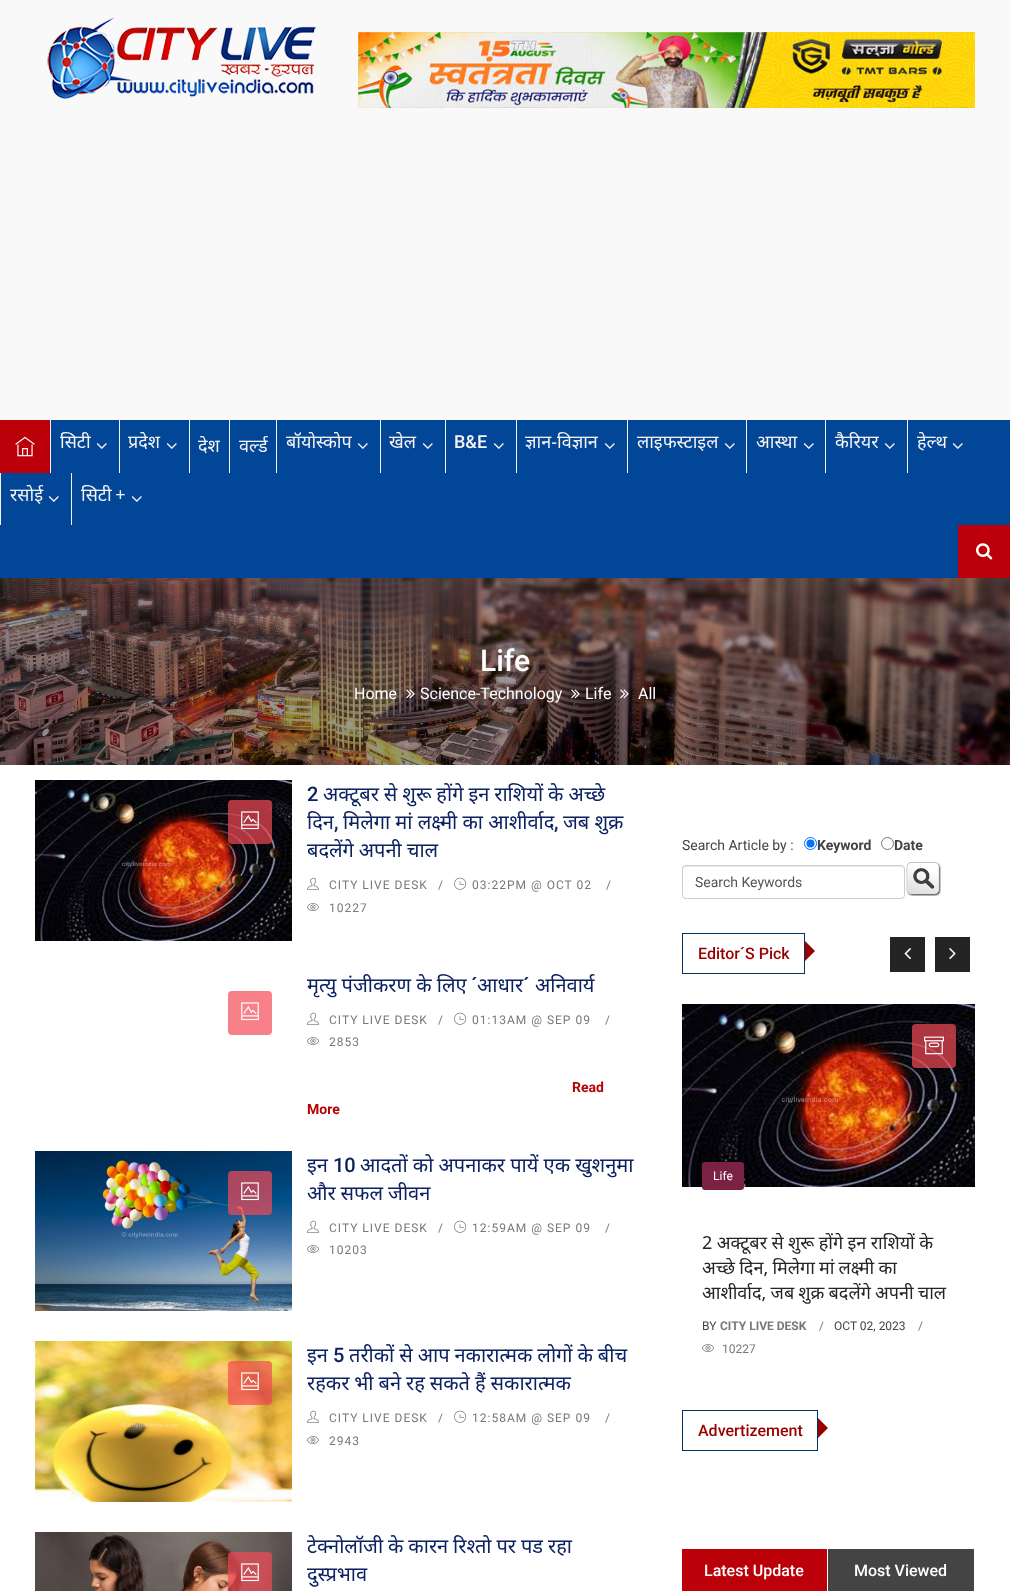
async function draw(canvas) {
  canvas.width = 1010;
  canvas.height = 1591;
  const ctx = canvas.getContext('2d');
  ctx.miterLimit = 4;
  ctx.fontKerning = 'normal';
  function label(s, x, y, font, color) {
    ctx.font = font;
    ctx.fillStyle = color;
    ctx.fillText(s, x, y);
  }
  function rect(x, y, w, h, color) {
    ctx.fillStyle = color;
    ctx.fillRect(x, y, w, h);
  }
  function roundedRect(x, y, w, h, r, color) {
    ctx.fillStyle = color;
    ctx.beginPath();
    ctx.roundRect(x, y, w, h, r);
    ctx.fill();
  }
  async function image(src, x, y, w, h) {
    const img = new Image();
    img.src = src;
    await img.decode();
    ctx.drawImage(img, x, y, w, h);
  }
  let path;

  rect(0, 0, 1010, 1591, '#fff');
  rect(0, 0, 1010, 420, '#f9f9f9');
  await image('assets/img1.png', 47, 17, 269, 82);
  await image('assets/img2.png', 358, 32, 617, 76);
  rect(0, 420, 1010, 158, '#014697');
  rect(0, 420, 50, 53, '#bb0009');
  await image('assets/img3.png', 15, 436, 20, 21);
  rect(50, 420, 1, 53, '#f2f2f2');
  label('सिटी', 60, 448, '18px Noto Sans', '#f8f3f3');
  await image('assets/img4.png', 96, 443, 11, 6);
  rect(119, 420, 1, 53, '#f2f2f2');
  label('प्रदेश', 128, 448, '18px Noto Sans', '#f8f3f3');
  await image('assets/img4.png', 166, 443, 11, 6);
  rect(189, 420, 1, 53, '#f2f2f2');
  label('देश', 198, 452, '18px Noto Sans', '#f8f3f3');
  rect(229, 420, 1, 53, '#f2f2f2');
  label('वर्ल्ड', 239, 452, '18px Noto Sans', '#f8f3f3');
  rect(276, 420, 1, 53, '#f2f2f2');
  label('बॉयोस्कोप', 286, 448, '18px Noto Sans', '#f8f3f3');
  await image('assets/img4.png', 357, 443, 11, 6);
  rect(380, 420, 1, 53, '#f2f2f2');
  label('खेल', 389, 448, '18px Noto Sans', '#f8f3f3');
  await image('assets/img4.png', 422, 443, 11, 6);
  rect(445, 420, 1, 53, '#f2f2f2');
  label('B&E', 454, 448, '500 18px Roboto', '#f8f3f3');
  await image('assets/img4.png', 493, 443, 11, 6);
  rect(516, 420, 1, 53, '#f2f2f2');
  label('ज्ञान-विज्ञान', 525, 448, '18px Noto Sans', '#f8f3f3');
  await image('assets/img4.png', 604, 443, 11, 6);
  rect(627, 420, 1, 53, '#f2f2f2');
  label('लाइफस्टाइल', 637, 448, '18px Noto Sans', '#f8f3f3');
  await image('assets/img4.png', 724, 443, 11, 6);
  rect(746, 420, 1, 53, '#f2f2f2');
  label('आस्था', 756, 448, '18px Noto Sans', '#f8f3f3');
  await image('assets/img4.png', 803, 443, 11, 6);
  rect(825, 420, 1, 53, '#f2f2f2');
  label('कैरियर', 835, 448, '18px Noto Sans', '#f8f3f3');
  await image('assets/img4.png', 884, 443, 11, 6);
  rect(907, 420, 1, 53, '#f2f2f2');
  label('हेल्थ', 917, 448, '18px Noto Sans', '#f8f3f3');
  await image('assets/img4.png', 952, 443, 11, 6);
  rect(0, 473, 1, 52, '#f2f2f2');
  label('रसोई', 10, 501, '18px Noto Sans', '#f8f3f3');
  await image('assets/img4.png', 48, 496, 11, 6);
  rect(71, 473, 1, 52, '#f2f2f2');
  ctx.wordSpacing = '-1px';
  label('सिटी +', 81, 501, '18px Noto Sans', '#f8f3f3');
  await image('assets/img4.png', 131, 496, 11, 6);
  rect(958, 525, 52, 53, '#bb0009');
  await image('assets/img5.png', 976, 543, 17, 17);
  await image('assets/img6.png', 0, 578, 1010, 187);
  ctx.wordSpacing = '0px';
  label('Life', 480, 671, '500 30px Roboto', '#fff');
  label('Home', 354, 699, '16px Roboto', '#fff');
  await image('assets/img7.png', 406, 689, 9, 10);
  label('Science-Technology', 420, 699, '16px Roboto', '#fff');
  await image('assets/img8.png', 571, 689, 9, 10);
  label('Life', 585, 699, '16px Roboto', '#fff');
  await image('assets/img9.png', 620, 689, 9, 10);
  label('All', 638, 699, '16px Roboto', '#fff');
  await image('assets/img10.png', 35, 780, 257, 161);
  roundedRect(228, 800, 44, 44, 4, '#f44a56b3');
  await image('assets/img11.png', 241, 811, 18, 19);
  label('2', 307, 801, '500 20px Roboto', '#0b2161');
  ctx.wordSpacing = '-0.25px';
  label('अक्टूबर से शुरू होंगे इन राशियों के अच्छे', 323, 801, '20px Noto Sans', '#0b2161');
  ctx.wordSpacing = '0px';
  label('दिन', 307, 829, '20px Noto Sans', '#0b2161');
  label(',', 334, 829, '500 20px Roboto', '#0b2161');
  label('मिलेगा मां लक्ष्मी का आशीर्वाद', 343, 829, '20px Noto Sans', '#0b2161');
  label(',', 554, 829, '500 20px Roboto', '#0b2161');
  label('जब शुक्र', 563, 829, '20px Noto Sans', '#0b2161');
  ctx.wordSpacing = '-0.25px';
  label('बदलेंगे अपनी चाल', 307, 857, '20px Noto Sans', '#0b2161');
  await image('assets/img12.png', 307, 877, 12, 13);
  ctx.letterSpacing = '1px';
  ctx.wordSpacing = '0px';
  label('CITY LIVE DESK', 329, 889, '12px Roboto', '#777');
  label('/', 438, 889, '12px Roboto', '#777');
  await image('assets/img13.png', 454, 877, 13, 13);
  label('03:22PM @ OCT 02', 472, 889, '12px Roboto', '#777');
  label('/', 606, 889, '12px Roboto', '#777');
  await image('assets/img14.png', 307, 903, 12, 8);
  label('10227', 329, 912, '12px Roboto', '#777');
  roundedRect(228, 991, 44, 44, 4, '#f78089');
  await image('assets/img15.png', 241, 1002, 18, 19);
  ctx.letterSpacing = '0px';
  label('मृत्यु पंजीकरण के लिए', 307, 992, '20px Noto Sans', '#0b2161');
  label('´', 471, 992, '500 20px Roboto', '#0b2161');
  label('´', 523, 992, '500 20px Roboto', '#0b2161');
  label('अनिवार्य', 535, 992, '20px Noto Sans', '#0b2161');
  label('आधार', 477, 992, '20px Noto Sans', '#0b2161');
  await image('assets/img12.png', 307, 1012, 12, 13);
  ctx.letterSpacing = '1px';
  label('CITY LIVE DESK', 329, 1024, '12px Roboto', '#777');
  label('/', 438, 1024, '12px Roboto', '#777');
  await image('assets/img13.png', 454, 1012, 13, 13);
  label('01:13AM @ SEP 09', 472, 1024, '12px Roboto', '#777');
  label('/', 605, 1024, '12px Roboto', '#777');
  await image('assets/img14.png', 307, 1037, 12, 8);
  label('2853', 329, 1046, '12px Roboto', '#777');
  ctx.letterSpacing = '0px';
  label('Read', 572, 1092, 'bold 14px Roboto', '#b40404');
  label('More', 307, 1114, 'bold 14px Roboto', '#b40404');
  await image('assets/img16.png', 35, 1151, 257, 160);
  roundedRect(228, 1171, 44, 44, 4, '#f44a56b3');
  await image('assets/img17.png', 241, 1182, 18, 19);
  label('इन', 307, 1172, '20px Noto Sans', '#0b2161');
  label('10', 333, 1172, '500 20px Roboto', '#0b2161');
  label('आदतों को अपनाकर पायें एक खुशनुमा', 360, 1172, '20px Noto Sans', '#0b2161');
  ctx.wordSpacing = '-0.25px';
  label('और सफल जीवन', 307, 1200, '20px Noto Sans', '#0b2161');
  await image('assets/img12.png', 307, 1220, 12, 13);
  ctx.letterSpacing = '1px';
  ctx.wordSpacing = '0px';
  label('CITY LIVE DESK', 329, 1232, '12px Roboto', '#777');
  label('/', 438, 1232, '12px Roboto', '#777');
  await image('assets/img13.png', 454, 1220, 13, 13);
  label('12:59AM @ SEP 09', 472, 1232, '12px Roboto', '#777');
  label('/', 605, 1232, '12px Roboto', '#777');
  await image('assets/img14.png', 307, 1245, 12, 8);
  label('10203', 329, 1254, '12px Roboto', '#777');
  await image('assets/img18.png', 35, 1341, 257, 161);
  roundedRect(228, 1361, 44, 44, 4, '#f44a56b3');
  await image('assets/img19.png', 241, 1372, 18, 19);
  ctx.letterSpacing = '0px';
  label('इन', 307, 1362, '20px Noto Sans', '#0b2161');
  label('5', 333, 1362, '500 20px Roboto', '#0b2161');
  ctx.wordSpacing = '-0.25px';
  label('तरीकों से आप नकारात्मक लोगों के बीच', 349, 1362, '20px Noto Sans', '#0b2161');
  label('रहकर भी बने रह सकते हैं सकारात्मक', 307, 1390, '20px Noto Sans', '#0b2161');
  await image('assets/img12.png', 307, 1410, 12, 13);
  ctx.letterSpacing = '1px';
  ctx.wordSpacing = '0px';
  label('CITY LIVE DESK', 329, 1422, '12px Roboto', '#777');
  label('/', 438, 1422, '12px Roboto', '#777');
  await image('assets/img13.png', 454, 1410, 13, 13);
  label('12:58AM @ SEP 09', 472, 1422, '12px Roboto', '#777');
  label('/', 605, 1422, '12px Roboto', '#777');
  await image('assets/img14.png', 307, 1436, 12, 8);
  label('2943', 329, 1445, '12px Roboto', '#777');
  await image('assets/img20.png', 35, 1532, 257, 59);
  roundedRect(228, 1552, 44, 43, 4, '#f44a56b3');
  await image('assets/img21.png', 241, 1563, 18, 19);
  ctx.letterSpacing = '0px';
  ctx.wordSpacing = '-0.25px';
  label('टेक्नोलॉजी के कारन रिश्तो पर पड रहा', 307, 1553, '20px Noto Sans', '#0b2161');
  ctx.wordSpacing = '0px';
  label('दुस्प्रभाव', 307, 1581, '20px Noto Sans', '#0b2161');
  label('Search Article by :', 682, 850, '14px Roboto', '#444');
  ctx.beginPath();
  ctx.arc(810.5, 843.5, 6, 0, 2 * Math.PI);
  ctx.strokeStyle = '#0075ff';
  ctx.stroke();
  ctx.fillStyle = '#0075ff';
  ctx.beginPath();
  ctx.arc(810.5, 843.5, 4, 0, 2 * Math.PI);
  ctx.fill();
  label('Keyword', 817, 850, 'bold 14px Roboto', '#444');
  ctx.beginPath();
  ctx.arc(887.5, 843.5, 6, 0, 2 * Math.PI);
  ctx.strokeStyle = '#767676';
  ctx.stroke();
  label('Date', 894, 850, 'bold 14px Roboto', '#444');
  ctx.fillStyle = '#ececec';
  path = new Path2D('M686 867H901C903 867 904 868 904 870V869C904 867 903 866 901 866H686C684 866 683 867 683 869V870C683 868 684 867 686 867Z');
  ctx.fill(path);
  ctx.beginPath();
  ctx.roundRect(682.5, 865.5, 222, 33, 3.5);
  ctx.strokeStyle = '#ccc';
  ctx.stroke();
  label('Search Keywords', 695, 887, '14px Roboto', '#555');
  await image('assets/img22.png', 906, 862, 35, 34);
  ctx.strokeStyle = '#036';
  ctx.strokeRect(682.5, 933.5, 122, 40);
  label('Editor´S Pick', 698, 959, '500 16px Roboto', '#900');
  path = new Path2D('M805 961V941L815 951Z');
  ctx.fill(path);
  rect(890, 937, 35, 35, '#242424');
  await image('assets/img23.png', 904, 948, 7, 12);
  rect(935, 937, 35, 35, '#242424');
  await image('assets/img24.png', 949, 948, 7, 12);
  await image('assets/img25.png', 682, 1004, 293, 183);
  roundedRect(912, 1024, 44, 44, 4, '#f44a56b3');
  await image('assets/img26.png', 924, 1036, 20, 19);
  roundedRect(702, 1162, 42, 28, 3, '#7b2143');
  label('Life', 713, 1180, '12px Roboto', '#fff');
  ctx.wordSpacing = '-0.25px';
  label('2 अक्टूबर से शुरू होंगे इन राशियों के', 702, 1249, '18px Noto Sans', '#242424');
  ctx.wordSpacing = '-0.5px';
  label('अच्छे दिन, मिलेगा मां लक्ष्मी का', 702, 1274, '18px Noto Sans', '#242424');
  label('आशीर्वाद, जब शुक्र बदलेंगे अपनी चाल', 702, 1299, '18px Noto Sans', '#242424');
  ctx.wordSpacing = '0px';
  label('BY', 702, 1330, '12px Roboto', '#444');
  label('CITY LIVE DESK', 720, 1330, 'bold 12px Roboto', '#777');
  label('/', 819, 1330, '12px Roboto', '#777');
  label('OCT 02, 2023', 834, 1330, '12px Roboto', '#444');
  label('/', 918, 1330, '12px Roboto', '#777');
  await image('assets/img14.png', 702, 1344, 12, 8);
  label('10227', 722, 1353, '12px Roboto', '#777');
  ctx.strokeRect(682.5, 1410.5, 135, 40);
  label('Advertizement', 698, 1436, '500 16px Roboto', '#900');
  path = new Path2D('M818 1438V1418L828 1428Z');
  ctx.fill(path);
  rect(682, 1549, 145, 42, '#bb0009');
  label('Latest Update', 704, 1576, '500 16px Roboto', '#fff');
  rect(828, 1549, 146, 42, '#444');
  label('Most Viewed', 854, 1576, '500 16px Roboto', '#fff');
}

draw(document.querySelector('canvas'));
